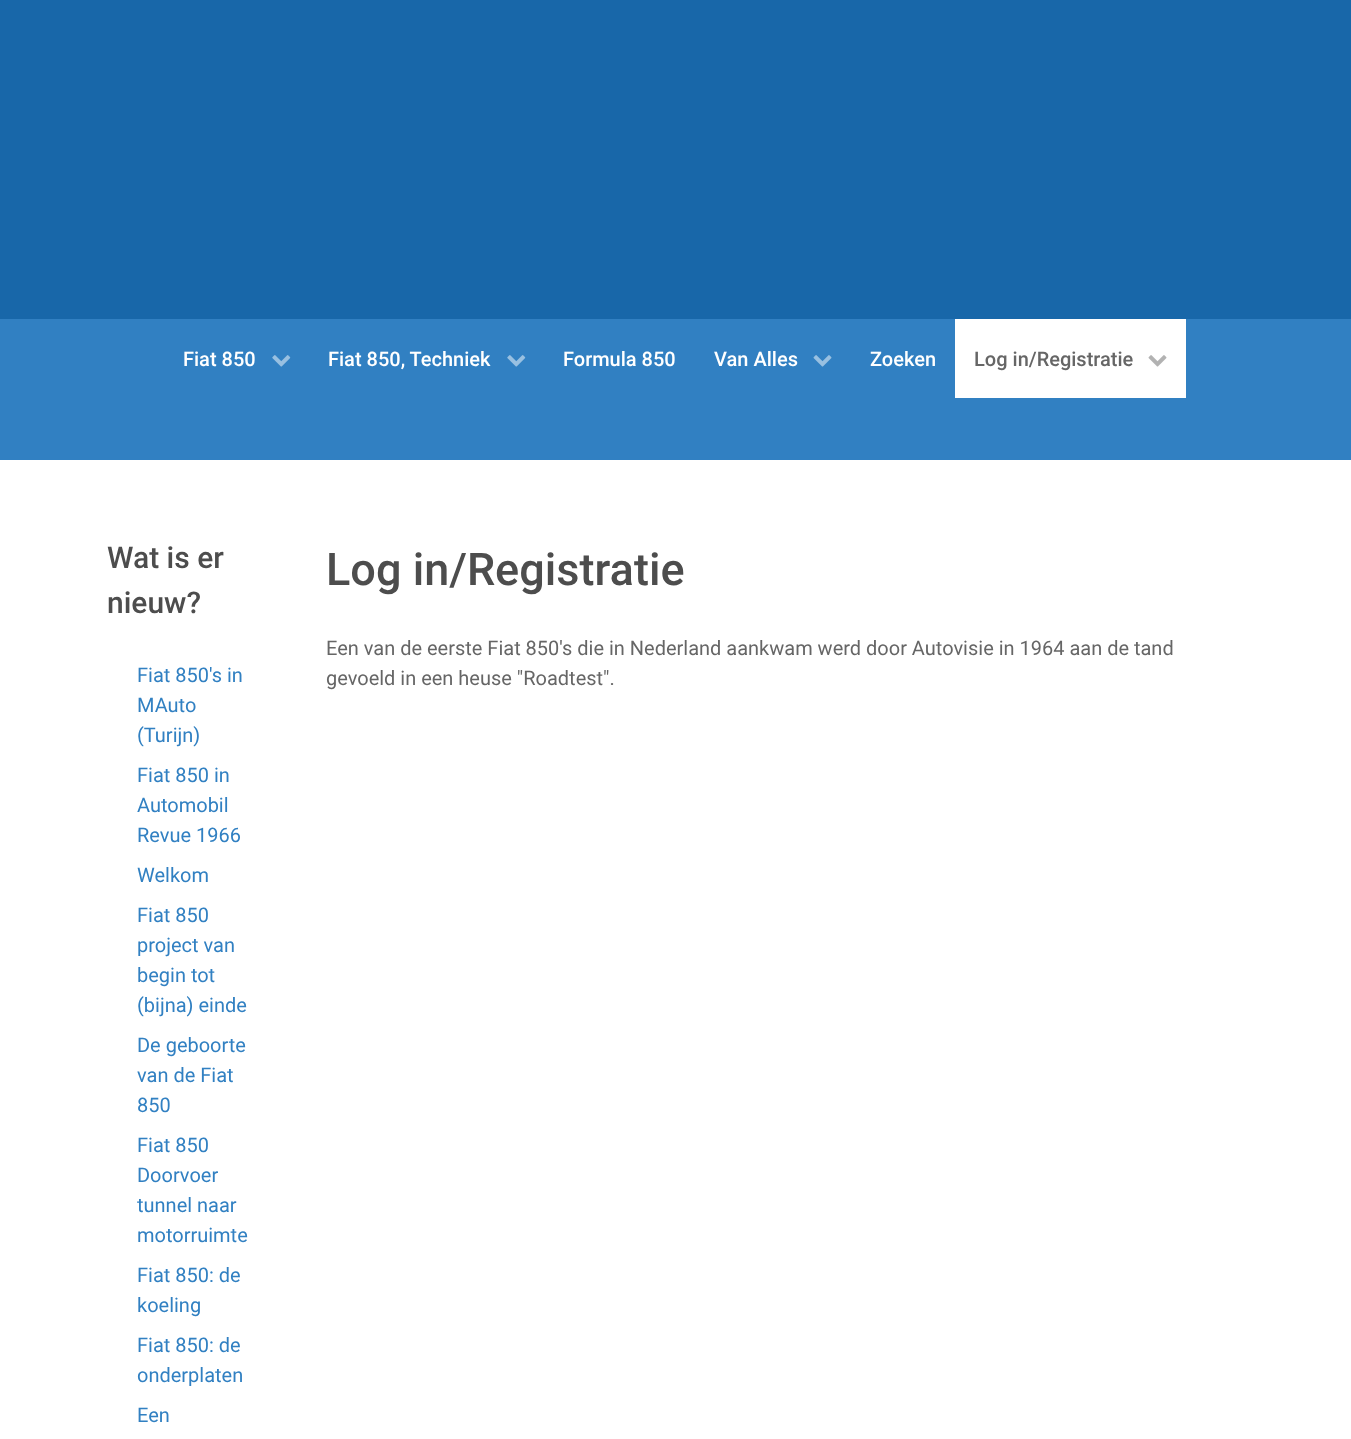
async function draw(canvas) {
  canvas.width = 1351;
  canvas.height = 1439;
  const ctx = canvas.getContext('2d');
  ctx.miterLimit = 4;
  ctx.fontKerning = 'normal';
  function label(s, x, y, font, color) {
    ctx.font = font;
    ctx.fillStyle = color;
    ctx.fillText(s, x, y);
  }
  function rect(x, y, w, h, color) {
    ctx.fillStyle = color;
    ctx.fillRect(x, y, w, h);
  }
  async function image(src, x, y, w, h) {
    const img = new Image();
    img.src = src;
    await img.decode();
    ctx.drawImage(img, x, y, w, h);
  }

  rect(0, 0, 1351, 1439, '#fff');
  rect(0, 0, 1351, 319, '#1867a9');
  rect(0, 319, 1351, 141, '#3180c2');
  label('Fiat 850', 183, 366, '500 20px Roboto', '#fff');
  await image('assets/img1.png', 272, 355, 19, 12);
  label('Fiat 850, Techniek', 328, 366, '500 20px Roboto', '#fff');
  await image('assets/img1.png', 507, 355, 19, 12);
  label('Formula 850', 563, 366, '500 20px Roboto', '#fff');
  label('Van Alles', 714, 366, '500 20px Roboto', '#fff');
  await image('assets/img2.png', 813, 355, 19, 12);
  label('Zoeken', 870, 366, '500 20px Roboto', '#fff');
  rect(955, 319, 231, 79, '#fff');
  label('Log in/Registratie', 974, 366, '500 20px Roboto', '#666');
  await image('assets/img3.png', 1148, 355, 19, 12);
  label('Wat is er', 107, 568, '500 30px Roboto', '#4d4d4d');
  label('nieuw?', 107, 613, '500 30px Roboto', '#4d4d4d');
  label('Fiat 850\'s in', 137, 682, '20px Roboto', '#3180c2');
  label('MAuto', 137, 712, '20px Roboto', '#3180c2');
  label('(Turijn)', 137, 742, '20px Roboto', '#3180c2');
  label('Fiat 850 in', 137, 782, '20px Roboto', '#3180c2');
  label('Automobil', 137, 812, '20px Roboto', '#3180c2');
  label('Revue 1966', 137, 842, '20px Roboto', '#3180c2');
  label('Welkom', 137, 882, '20px Roboto', '#3180c2');
  label('Fiat 850', 137, 922, '20px Roboto', '#3180c2');
  label('project van', 137, 952, '20px Roboto', '#3180c2');
  label('begin tot', 137, 982, '20px Roboto', '#3180c2');
  label('(bijna) einde', 137, 1012, '20px Roboto', '#3180c2');
  label('De geboorte', 137, 1052, '20px Roboto', '#3180c2');
  label('van de Fiat', 137, 1082, '20px Roboto', '#3180c2');
  label('850', 137, 1112, '20px Roboto', '#3180c2');
  label('Fiat 850', 137, 1152, '20px Roboto', '#3180c2');
  label('Doorvoer', 137, 1182, '20px Roboto', '#3180c2');
  label('tunnel naar', 137, 1212, '20px Roboto', '#3180c2');
  label('motorruimte', 137, 1242, '20px Roboto', '#3180c2');
  label('Fiat 850: de', 137, 1282, '20px Roboto', '#3180c2');
  label('koeling', 137, 1312, '20px Roboto', '#3180c2');
  label('Fiat 850: de', 137, 1352, '20px Roboto', '#3180c2');
  label('onderplaten', 137, 1382, '20px Roboto', '#3180c2');
  label('Een', 137, 1422, '20px Roboto', '#3180c2');
  label('Log in/Registratie', 326, 585, '500 45px Roboto', '#4d4d4d');
  label('Een van de eerste Fiat 850\'s die in Nederland aankwam werd door Autovisie in 1964 aan de tand', 326, 655, '20px Roboto', '#666');
  label('gevoeld in een heuse "Roadtest".', 326, 685, '20px Roboto', '#666');
}

draw(document.querySelector('canvas'));
